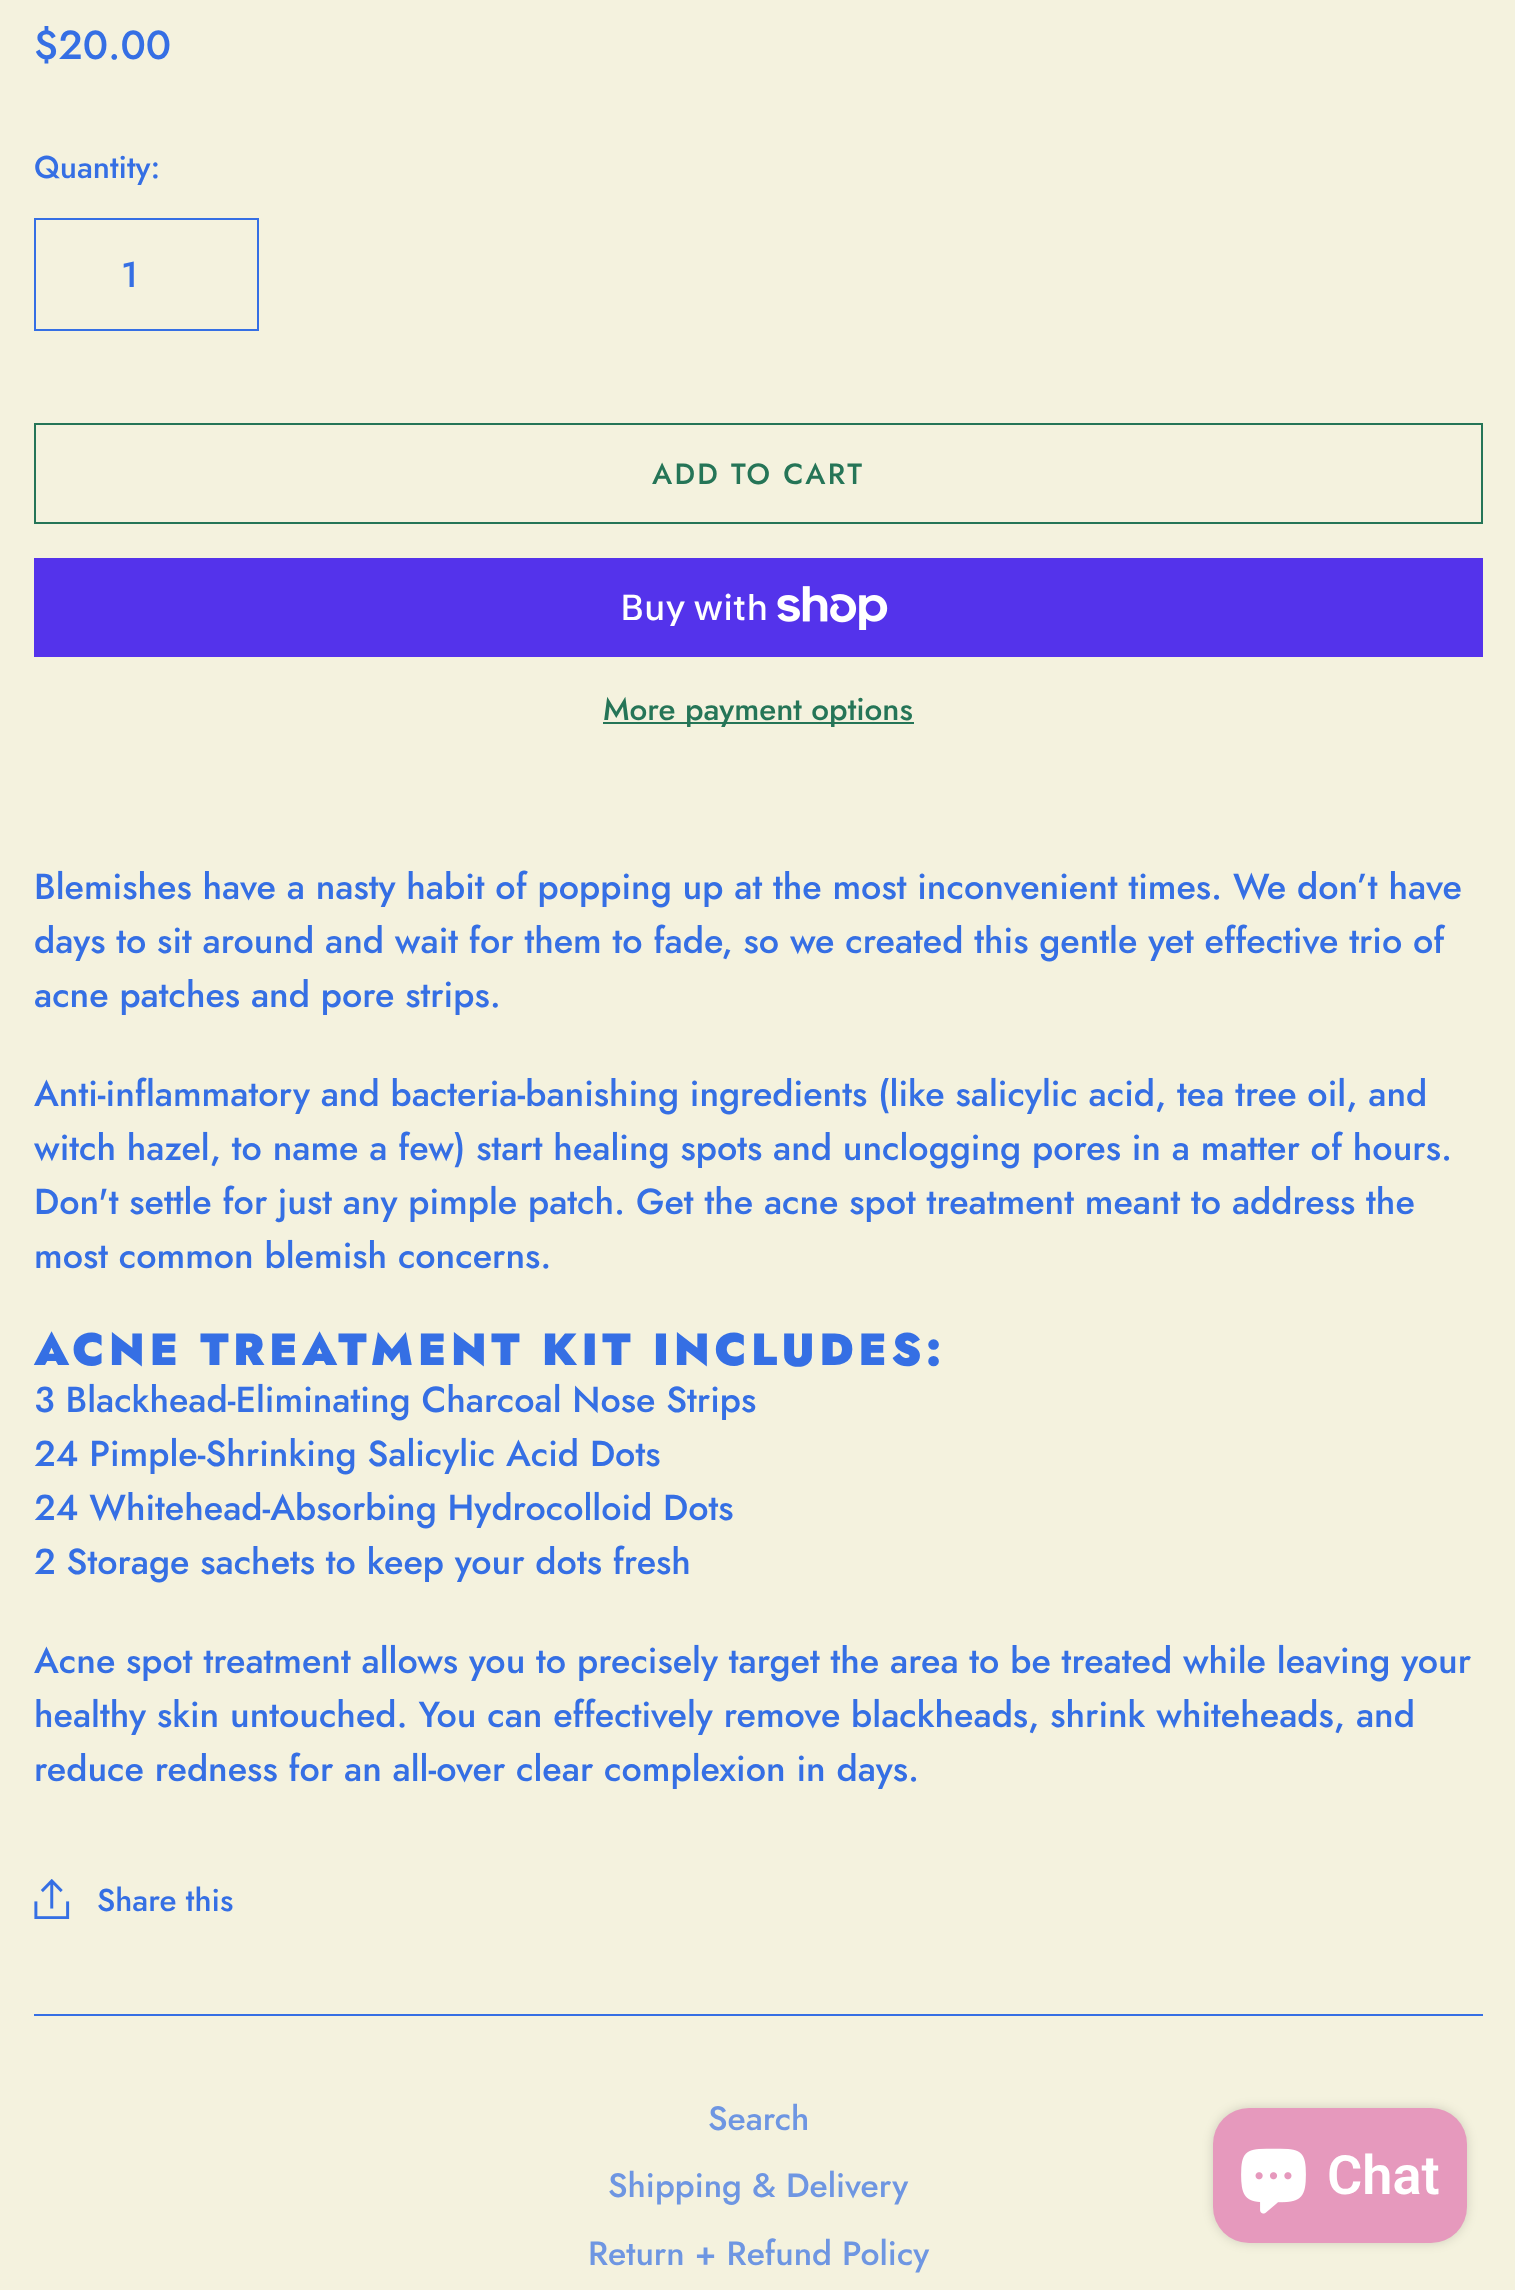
async function draw(canvas) {
  canvas.width = 1515;
  canvas.height = 2290;
  const ctx = canvas.getContext('2d');
  ctx.miterLimit = 4;
  ctx.fontKerning = 'normal';
  function label(s, x, y, font, color) {
    ctx.font = font;
    ctx.fillStyle = color;
    ctx.fillText(s, x, y);
  }
  function rect(x, y, w, h, color) {
    ctx.fillStyle = color;
    ctx.fillRect(x, y, w, h);
  }
  function roundedRect(x, y, w, h, r, color) {
    ctx.fillStyle = color;
    ctx.beginPath();
    ctx.roundRect(x, y, w, h, r);
    ctx.fill();
  }
  async function image(src, x, y, w, h) {
    const img = new Image();
    img.src = src;
    await img.decode();
    ctx.drawImage(img, x, y, w, h);
  }

  rect(0, 0, 1515, 2290, '#f4f2de');
  label('$20.00', 34, 59, '500 40.5px Jost', '#356fe4');
  label('Quantity:', 34, 178, '500 31.5px Jost', '#356fe4');
  ctx.strokeStyle = '#356fe4';
  ctx.lineWidth = 2;
  ctx.strokeRect(35, 219, 223, 111);
  label('1', 121, 287, '500 36px Jost', '#356fe4');
  ctx.strokeStyle = '#257557';
  ctx.strokeRect(35, 424, 1447, 99);
  ctx.letterSpacing = '2.25px';
  label('ADD TO CART', 652, 484, '500 29.25px Jost', '#257557');
  rect(34, 558, 1449, 99, '#5433eb');
  ctx.letterSpacing = '0px';
  label('Buy with', 620, 620, '500 36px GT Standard', '#fff');
  await image('assets/img1.png', 777, 586, 111, 44);
  rect(603, 722, 311, 2, '#257557');
  label('More payment options', 603, 720, '500 31.5px Jost', '#257557');
  label('Blemishes have a nasty habit of popping up at the most inconvenient times. We don’t have', 34, 899, '500 36px Jost', '#356fe4');
  label('days to sit around and wait for them to fade, so we created this gentle yet effective trio of', 34, 953, '500 36px Jost', '#356fe4');
  label('acne patches and pore strips.', 34, 1007, '500 36px Jost', '#356fe4');
  label('Anti-inflammatory and bacteria-banishing ingredients (like salicylic acid, tea tree oil, and', 34, 1106, '500 36px Jost', '#356fe4');
  label('witch hazel, to name a few) start healing spots and unclogging pores in a matter of hours.', 34, 1160, '500 36px Jost', '#356fe4');
  label('Don\'t settle for just any pimple patch. Get the acne spot treatment meant to address the', 34, 1214, '500 36px Jost', '#356fe4');
  label('most common blemish concerns.', 34, 1268, '500 36px Jost', '#356fe4');
  ctx.letterSpacing = '4.5px';
  label('ACNE TREATMENT KIT INCLUDES:', 34, 1365, '900 45px Jost', '#356fe4');
  ctx.letterSpacing = '0px';
  label('3 Blackhead-Eliminating Charcoal Nose Strips', 34, 1412, '500 36px Jost', '#356fe4');
  label('24 Pimple-Shrinking Salicylic Acid Dots', 34, 1466, '500 36px Jost', '#356fe4');
  label('24 Whitehead-Absorbing Hydrocolloid Dots', 34, 1520, '500 36px Jost', '#356fe4');
  label('2 Storage sachets to keep your dots fresh', 34, 1574, '500 36px Jost', '#356fe4');
  label('Acne spot treatment allows you to precisely target the area to be treated while leaving your', 34, 1673, '500 36px Jost', '#356fe4');
  label('healthy skin untouched. You can effectively remove blackheads, shrink whiteheads, and', 34, 1727, '500 36px Jost', '#356fe4');
  label('reduce redness for an all-over clear complexion in days.', 34, 1781, '500 36px Jost', '#356fe4');
  await image('assets/img2.png', 34, 1879, 36, 40);
  label('Share this', 97, 1911, '500 31.5px Jost', '#356fe4');
  rect(34, 2014, 1449, 2, '#356fe4');
  label('Search', 708, 2130, '500 33.75px Jost', '#6e96e2');
  label('Shipping & Delivery', 608, 2197, '500 33.75px Jost', '#6e96e2');
  label('Return + Refund Policy', 588, 2265, '500 33.75px Jost', '#6e96e2');
  ctx.fillStyle = '#00000026';
  ctx.filter = 'blur(5.5px)';
  ctx.beginPath();
  ctx.roundRect(1213, 2108, 254, 135, 36);
  ctx.fill();
  ctx.filter = 'none';
  roundedRect(1213, 2108, 254, 135, 36, '#e699bd');
  await image('assets/img3.png', 1241, 2148, 65, 66);
  label('Chat', 1327, 2194, '600 54px Roboto', '#fff');
}

draw(document.querySelector('canvas'));
